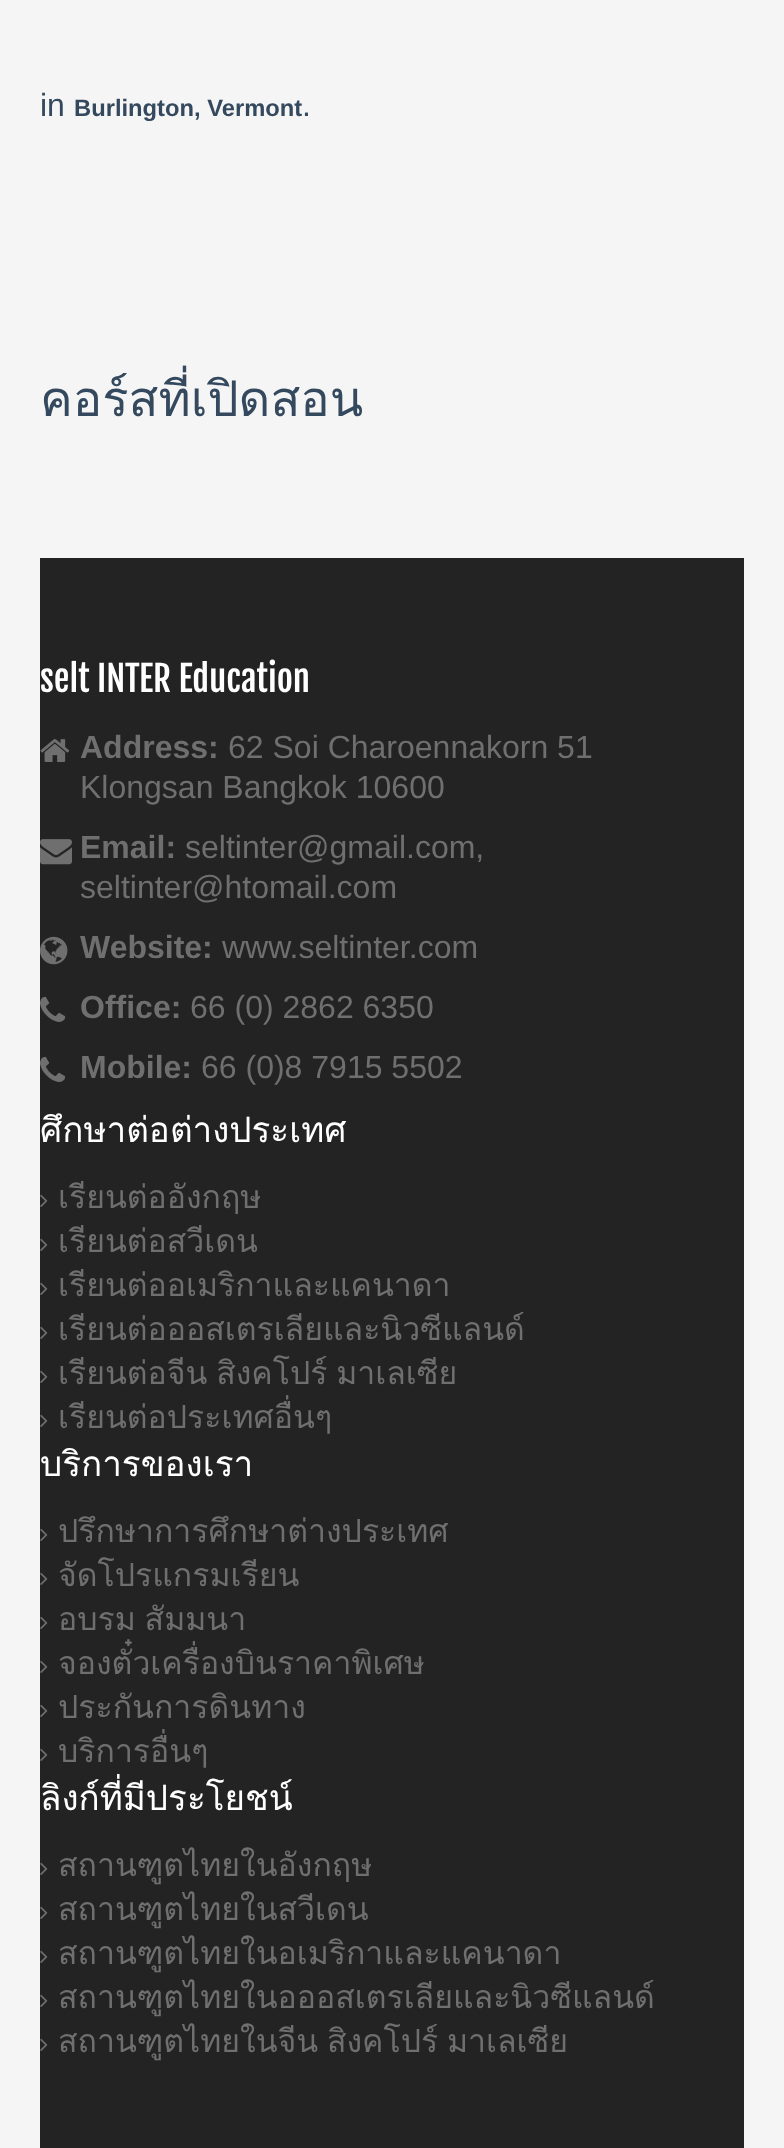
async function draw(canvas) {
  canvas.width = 784;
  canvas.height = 2148;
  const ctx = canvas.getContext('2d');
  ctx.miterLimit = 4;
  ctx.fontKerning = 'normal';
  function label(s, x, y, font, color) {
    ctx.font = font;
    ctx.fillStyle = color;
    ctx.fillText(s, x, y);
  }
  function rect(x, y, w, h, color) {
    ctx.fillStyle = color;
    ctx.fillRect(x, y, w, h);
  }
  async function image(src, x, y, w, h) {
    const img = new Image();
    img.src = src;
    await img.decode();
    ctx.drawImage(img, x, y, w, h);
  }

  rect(0, 0, 784, 2148, '#f5f5f5');
  label('in', 40, 116, '32px Liberation Sans', '#34495e');
  label('Burlington, Vermont', 74, 116, 'bold 23.75px Liberation Sans', '#34495e');
  label('.', 302, 116, '32px Liberation Sans', '#34495e');
  label('คอร์สที่เปิดสอน', 40, 416, '49px Loma', '#34495e');
  rect(40, 558, 704, 1590, '#232323');
  label('selt INTER Education', 40, 692, '35px Fjalla One', '#fff');
  await image('assets/img1.png', 40, 739, 30, 23);
  label('Address:', 80, 758, 'bold 32px Liberation Sans', '#6f6f6f');
  label('62 Soi Charoennakorn 51', 228, 758, '32px Liberation Sans', '#6f6f6f');
  label('Klongsan Bangkok 10600', 80, 798, '32px Liberation Sans', '#6f6f6f');
  await image('assets/img2.png', 40, 839, 32, 26);
  label('Email:', 80, 858, 'bold 32px Liberation Sans', '#6f6f6f');
  label('seltinter@gmail.com,', 185, 858, '32px Liberation Sans', '#6f6f6f');
  label('seltinter@htomail.com', 80, 898, '32px Liberation Sans', '#6f6f6f');
  await image('assets/img3.png', 40, 936, 28, 29);
  label('Website:', 80, 958, 'bold 32px Liberation Sans', '#6f6f6f');
  label('www.seltinter.com', 222, 958, '32px Liberation Sans', '#6f6f6f');
  await image('assets/img4.png', 40, 996, 26, 26);
  label('Office:', 80, 1018, 'bold 32px Liberation Sans', '#6f6f6f');
  label('66 (0) 2862 6350', 190, 1018, '32px Liberation Sans', '#6f6f6f');
  await image('assets/img4.png', 40, 1056, 26, 26);
  label('Mobile:', 80, 1078, 'bold 32px Liberation Sans', '#6f6f6f');
  label('66 (0)8 7915 5502', 201, 1078, '32px Liberation Sans', '#6f6f6f');
  label('ศึกษาต่อต่างประเทศ', 40, 1142, '35px Loma', '#fff');
  await image('assets/img5.png', 40, 1194, 8, 13);
  label('เรียนต่ออังกฤษ', 58, 1208, '32px Loma', '#6f6f6f');
  await image('assets/img5.png', 40, 1238, 8, 13);
  label('เรียนต่อสวีเดน', 58, 1252, '32px Loma', '#6f6f6f');
  await image('assets/img5.png', 40, 1282, 8, 13);
  label('เรียนต่ออเมริกาและแคนาดา', 58, 1296, '32px Loma', '#6f6f6f');
  await image('assets/img5.png', 40, 1326, 8, 13);
  label('เรียนต่อออสเตรเลียและนิวซีแลนด์', 58, 1340, '32px Loma', '#6f6f6f');
  await image('assets/img5.png', 40, 1370, 8, 13);
  ctx.wordSpacing = '-2px';
  label('เรียนต่อจีน สิงคโปร์ มาเลเซีย', 58, 1384, '32px Loma', '#6f6f6f');
  await image('assets/img5.png', 40, 1414, 8, 13);
  ctx.wordSpacing = '0px';
  label('เรียนต่อประเทศอื่นๆ', 58, 1428, '32px Loma', '#6f6f6f');
  label('บริการของเรา', 40, 1476, '35px Loma', '#fff');
  await image('assets/img5.png', 40, 1528, 8, 13);
  label('ปรึกษาการศึกษาต่างประเทศ', 58, 1542, '32px Loma', '#6f6f6f');
  await image('assets/img5.png', 40, 1572, 8, 13);
  label('จัดโปรแกรมเรียน', 58, 1586, '32px Loma', '#6f6f6f');
  await image('assets/img5.png', 40, 1616, 8, 13);
  ctx.wordSpacing = '-2px';
  label('อบรม สัมมนา', 58, 1630, '32px Loma', '#6f6f6f');
  await image('assets/img5.png', 40, 1660, 8, 13);
  ctx.wordSpacing = '0px';
  label('จองตั๋วเครื่องบินราคาพิเศษ', 58, 1674, '32px Loma', '#6f6f6f');
  await image('assets/img5.png', 40, 1704, 8, 13);
  label('ประกันการดินทาง', 58, 1718, '32px Loma', '#6f6f6f');
  await image('assets/img5.png', 40, 1748, 8, 13);
  label('บริการอื่นๆ', 58, 1762, '32px Loma', '#6f6f6f');
  label('ลิงก์ที่มีประโยชน์', 40, 1810, '35px Loma', '#fff');
  await image('assets/img5.png', 40, 1862, 8, 13);
  label('สถานฑูตไทยในอังกฤษ', 58, 1876, '32px Loma', '#6f6f6f');
  await image('assets/img5.png', 40, 1906, 8, 13);
  label('สถานฑูตไทยในสวีเดน', 58, 1920, '32px Loma', '#6f6f6f');
  await image('assets/img5.png', 40, 1950, 8, 13);
  label('สถานฑูตไทยในอเมริกาและแคนาดา', 58, 1964, '32px Loma', '#6f6f6f');
  await image('assets/img5.png', 40, 1994, 8, 13);
  label('สถานฑูตไทยในอออสเตรเลียและนิวซีแลนด์', 58, 2008, '32px Loma', '#6f6f6f');
  await image('assets/img5.png', 40, 2038, 8, 13);
  ctx.wordSpacing = '-2px';
  label('สถานฑูตไทยในจีน สิงคโปร์ มาเลเซีย', 58, 2052, '32px Loma', '#6f6f6f');
}

draw(document.querySelector('canvas'));
